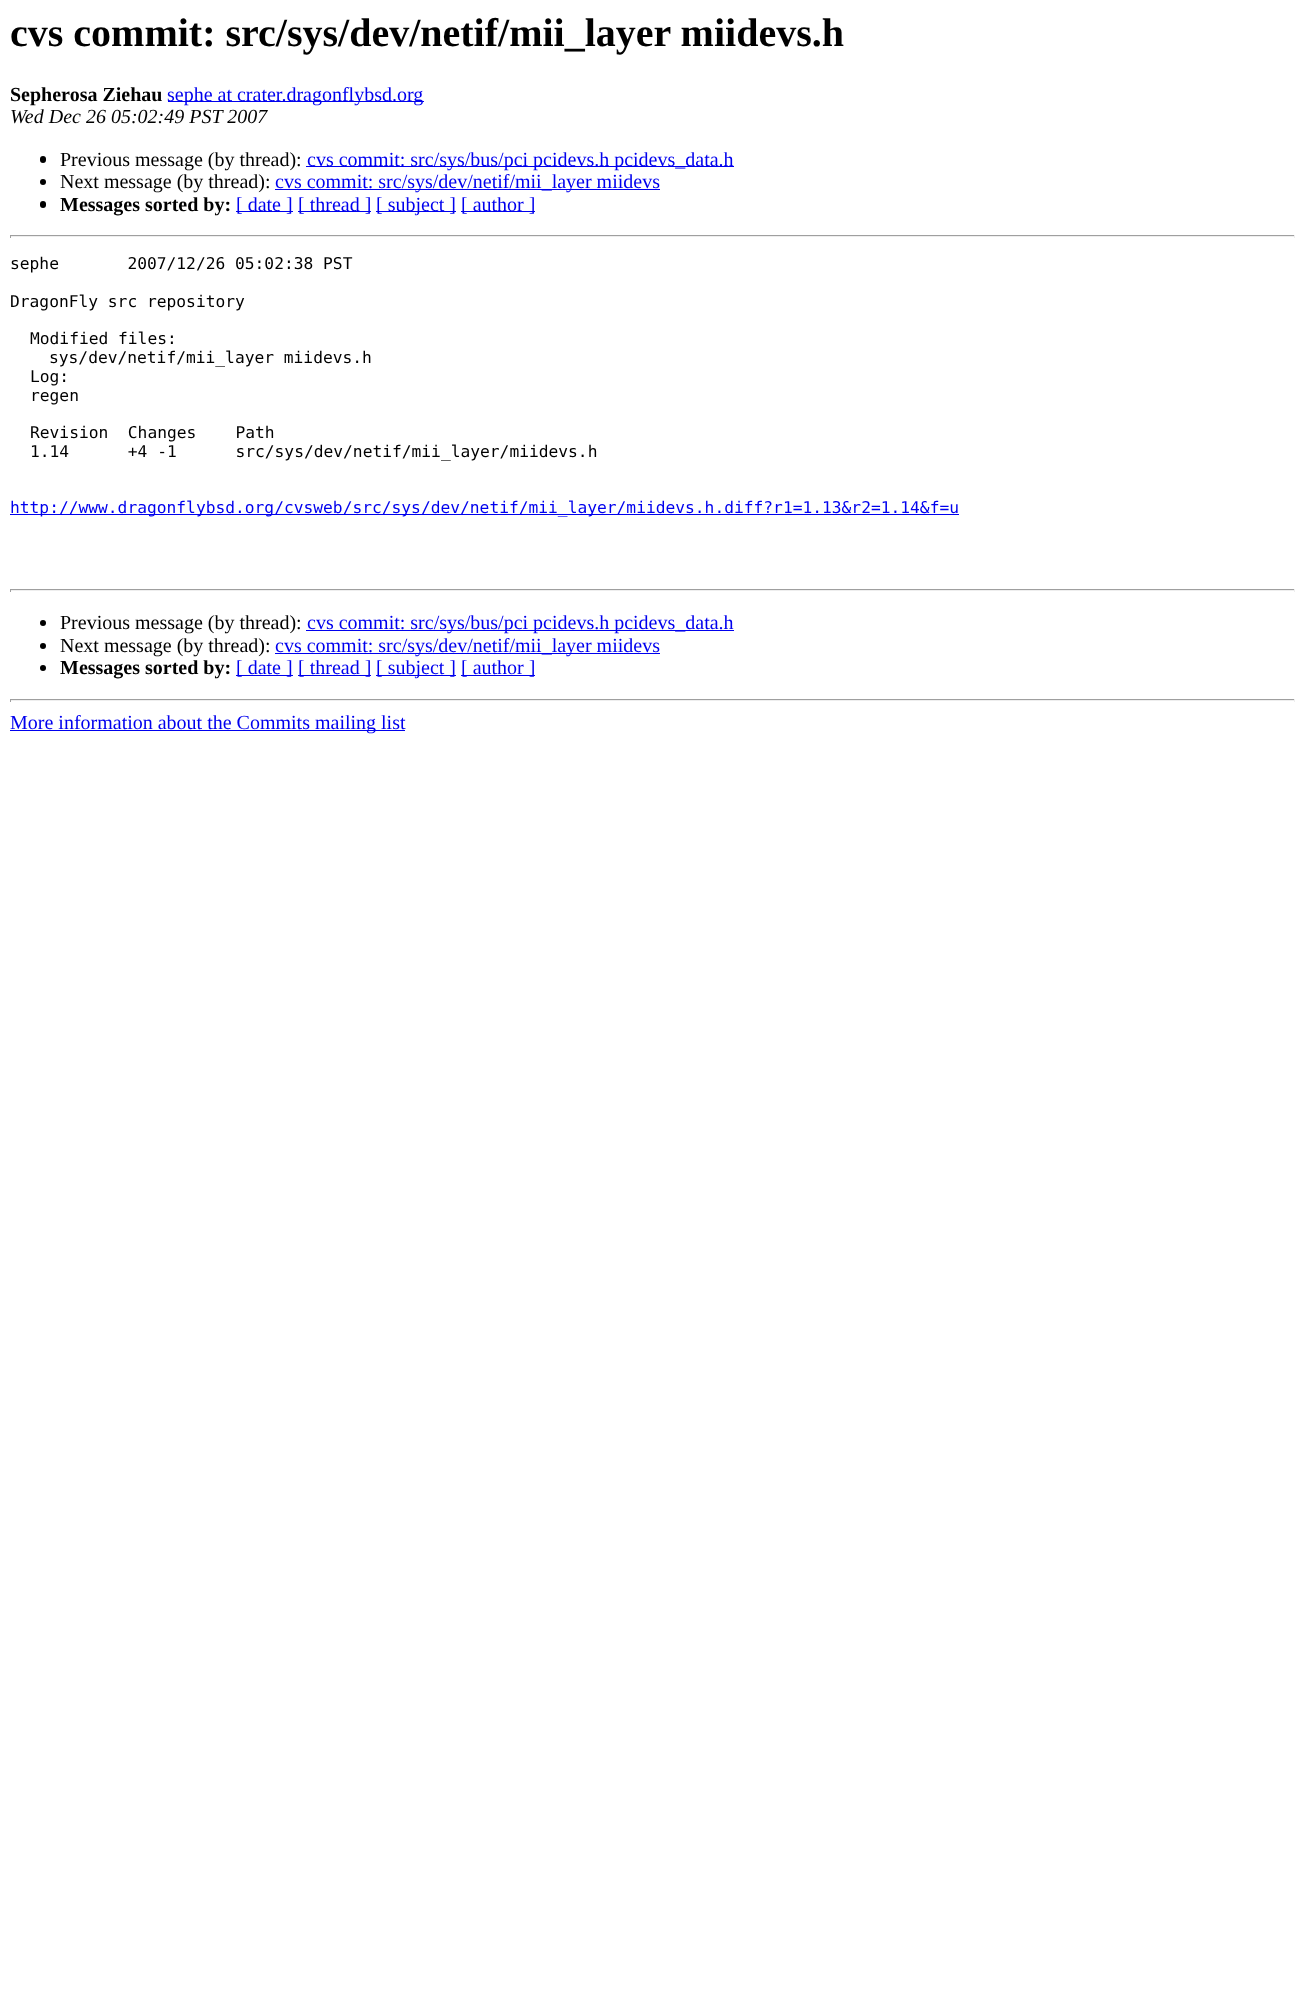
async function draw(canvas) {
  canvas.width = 1305;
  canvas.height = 2005;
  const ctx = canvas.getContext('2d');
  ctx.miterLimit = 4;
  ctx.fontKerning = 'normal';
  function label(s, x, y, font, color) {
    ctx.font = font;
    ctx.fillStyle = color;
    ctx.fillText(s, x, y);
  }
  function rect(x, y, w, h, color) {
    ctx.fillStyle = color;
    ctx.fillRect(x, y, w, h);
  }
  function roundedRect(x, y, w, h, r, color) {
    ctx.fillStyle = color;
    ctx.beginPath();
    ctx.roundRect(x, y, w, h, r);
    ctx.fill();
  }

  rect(0, 0, 1305, 2005, '#fff');
  label('cvs commit: src/sys/dev/netif/mii_layer miidevs.h', 10, 46, 'bold 40px Liberation Serif', '#000');
  label('Sepherosa Ziehau', 10, 101, 'bold 20px Liberation Serif', '#000');
  rect(168, 101, 256, 1, '#00e');
  label('sephe at crater.dragonflybsd.org', 167, 101, '20px Liberation Serif', '#00e');
  label('Wed Dec 26 05:02:49 PST 2007', 10, 123, 'italic 20px Liberation Serif', '#000');
  roundedRect(40, 156, 6, 7, 3, '#000');
  label('Previous message (by thread):', 60, 166, '20px Liberation Serif', '#000');
  rect(306, 166, 428, 1, '#00e');
  label('cvs commit: src/sys/bus/pci pcidevs.h pcidevs_data.h', 307, 166, '20px Liberation Serif', '#00e');
  ctx.fillStyle = '#000';
  ctx.beginPath();
  ctx.arc(43, 182, 3, 0, 2 * Math.PI);
  ctx.fill();
  label('Next message (by thread):', 60, 188, '20px Liberation Serif', '#000');
  rect(275, 189, 385, 1, '#00e');
  label('cvs commit: src/sys/dev/netif/mii_layer miidevs', 275, 188, '20px Liberation Serif', '#00e');
  roundedRect(40, 201, 6, 7, 3, '#000');
  label('Messages sorted by:', 60, 211, 'bold 20px Liberation Serif', '#000');
  rect(236, 211, 57, 1, '#00e');
  label('[ date ]', 236, 211, '20px Liberation Serif', '#00e');
  rect(298, 211, 73, 1, '#00e');
  label('[ thread ]', 298, 211, '20px Liberation Serif', '#00e');
  rect(376, 211, 80, 1, '#00e');
  label('[ subject ]', 376, 211, '20px Liberation Serif', '#00e');
  rect(461, 211, 74, 1, '#00e');
  label('[ author ]', 461, 211, '20px Liberation Serif', '#00e');
  rect(10, 235, 1285, 1, '#9f9f9f');
  rect(1294, 235, 1, 3, '#eee');
  rect(10, 236, 1285, 1, '#eee');
  rect(10, 235, 1, 3, '#9f9f9f');
  label('sephe       2007/12/26 05:02:38 PST', 10, 269, '16.25px DejaVu Sans Mono', '#000');
  label('DragonFly src repository', 10, 307, '16.25px DejaVu Sans Mono', '#000');
  label('Modified files:', 30, 344, '16.25px DejaVu Sans Mono', '#000');
  label('sys/dev/netif/mii_layer miidevs.h', 49, 363, '16.25px DejaVu Sans Mono', '#000');
  label('Log:', 30, 382, '16.25px DejaVu Sans Mono', '#000');
  label('regen', 30, 401, '16.25px DejaVu Sans Mono', '#000');
  label('Revision  Changes    Path', 30, 438, '16.25px DejaVu Sans Mono', '#000');
  label('1.14      +4 -1      src/sys/dev/netif/mii_layer/miidevs.h', 30, 457, '16.25px DejaVu Sans Mono', '#000');
  rect(10, 514, 949, 1, '#00e');
  label('http://www.dragonflybsd.org/cvsweb/src/sys/dev/netif/mii_layer/miidevs.h.diff?r1=1.13&r2=1.14&f=u', 10, 513, '16.25px DejaVu Sans Mono', '#00e');
  rect(10, 589, 1285, 1, '#9f9f9f');
  rect(1294, 589, 1, 3, '#eee');
  rect(10, 590, 1285, 1, '#eee');
  rect(10, 589, 1, 3, '#9f9f9f');
  ctx.fillStyle = '#000';
  ctx.beginPath();
  ctx.arc(43, 623, 3, 0, 2 * Math.PI);
  ctx.fill();
  label('Previous message (by thread):', 60, 629, '20px Liberation Serif', '#000');
  rect(306, 630, 428, 1, '#00e');
  label('cvs commit: src/sys/bus/pci pcidevs.h pcidevs_data.h', 307, 629, '20px Liberation Serif', '#00e');
  ctx.fillStyle = '#000';
  ctx.beginPath();
  ctx.arc(43, 646, 3, 0, 2 * Math.PI);
  ctx.fill();
  label('Next message (by thread):', 60, 652, '20px Liberation Serif', '#000');
  rect(275, 653, 385, 1, '#00e');
  label('cvs commit: src/sys/dev/netif/mii_layer miidevs', 275, 652, '20px Liberation Serif', '#00e');
  ctx.fillStyle = '#000';
  ctx.beginPath();
  ctx.arc(43, 668, 3, 0, 2 * Math.PI);
  ctx.fill();
  label('Messages sorted by:', 60, 674, 'bold 20px Liberation Serif', '#000');
  rect(236, 675, 57, 1, '#00e');
  label('[ date ]', 236, 674, '20px Liberation Serif', '#00e');
  rect(298, 675, 73, 1, '#00e');
  label('[ thread ]', 298, 674, '20px Liberation Serif', '#00e');
  rect(376, 675, 80, 1, '#00e');
  label('[ subject ]', 376, 674, '20px Liberation Serif', '#00e');
  rect(461, 675, 74, 1, '#00e');
  label('[ author ]', 461, 674, '20px Liberation Serif', '#00e');
  rect(10, 699, 1285, 1, '#9f9f9f');
  rect(1294, 699, 1, 3, '#eee');
  rect(10, 700, 1285, 1, '#eee');
  rect(10, 699, 1, 3, '#9f9f9f');
  rect(10, 730, 395, 1, '#00e');
  label('More information about the Commits mailing list', 10, 729, '20px Liberation Serif', '#00e');
}

draw(document.querySelector('canvas'));
